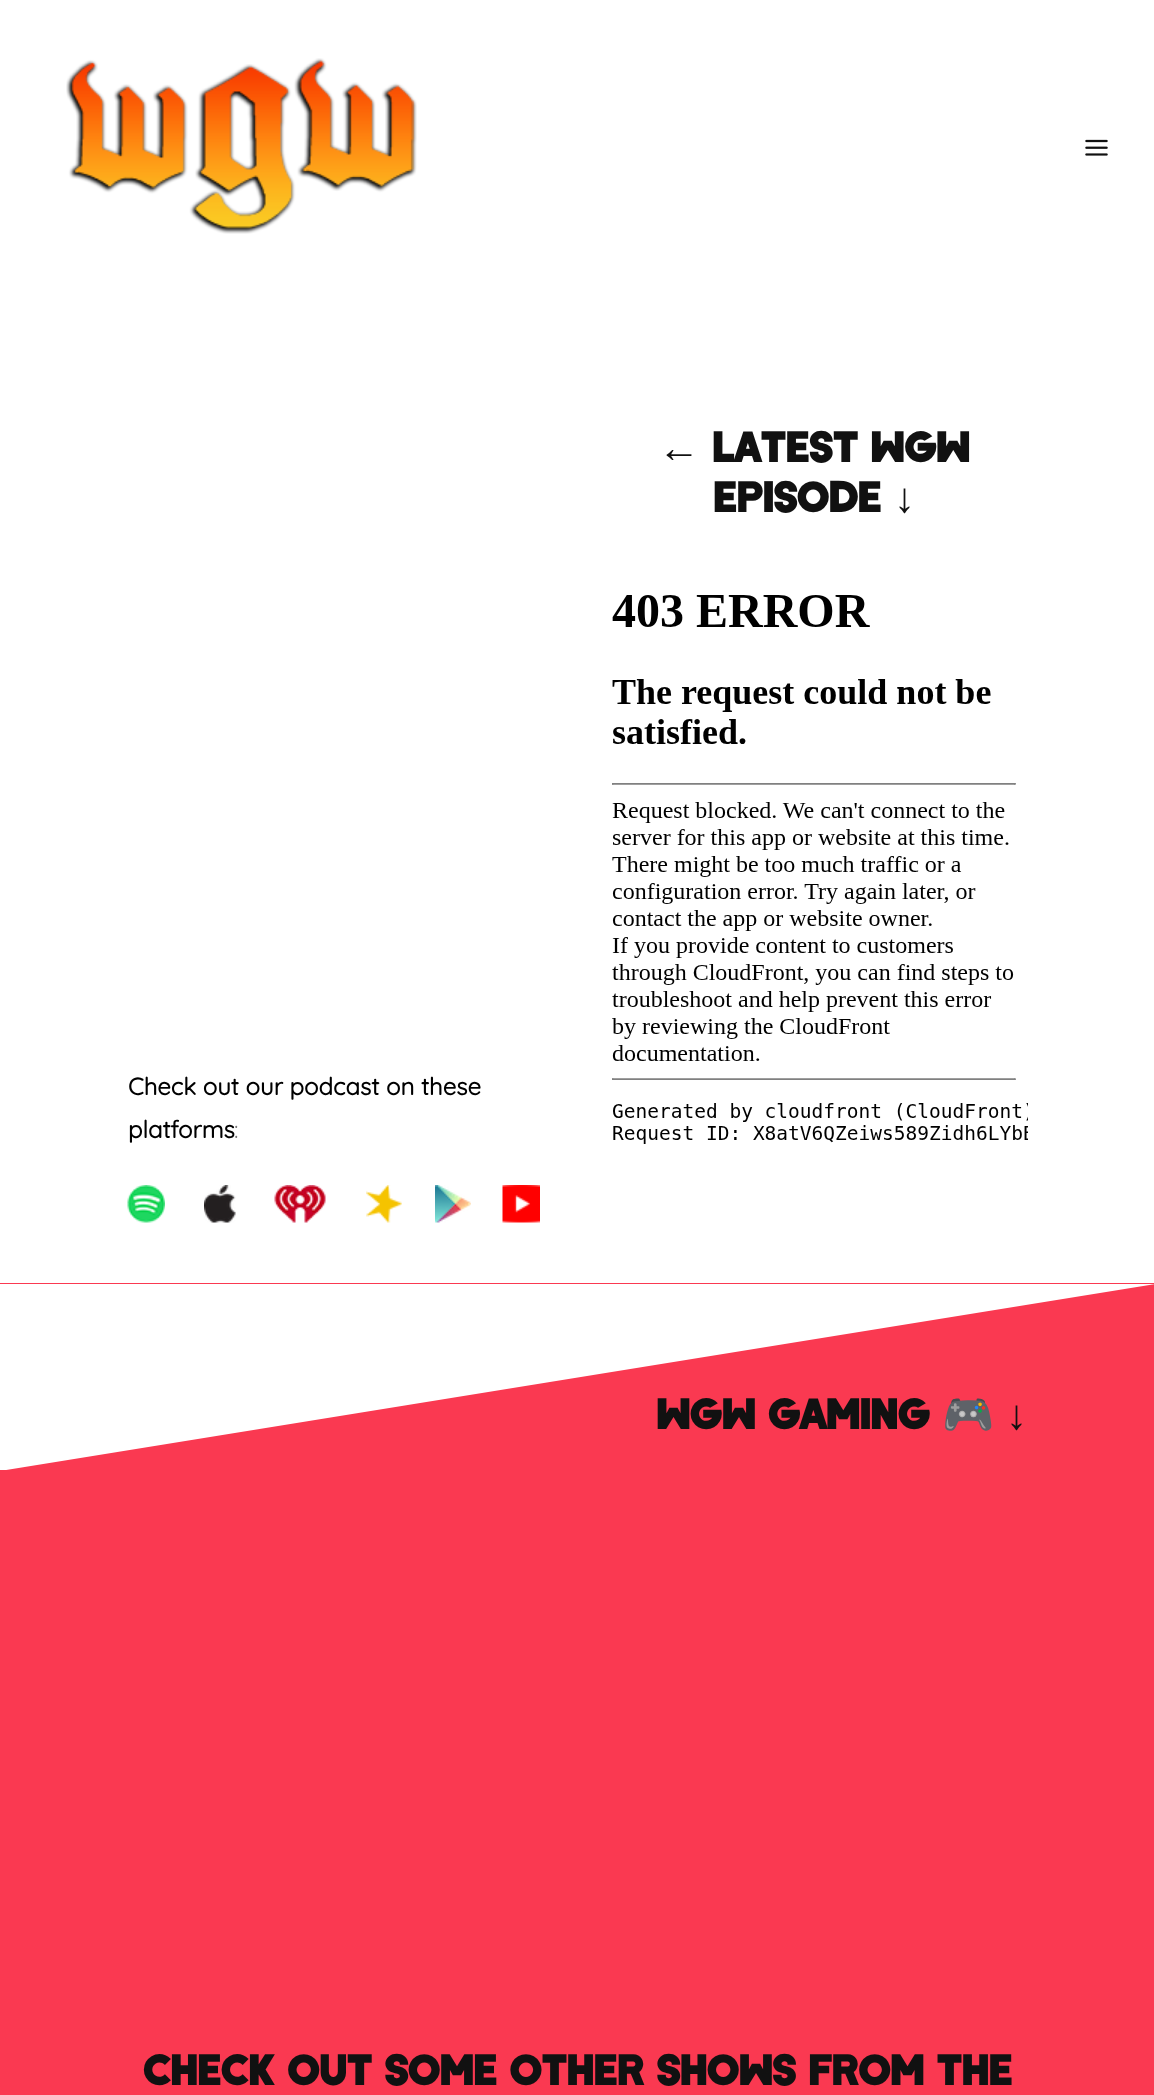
async function draw(canvas) {
  canvas.width = 1154;
  canvas.height = 2095;
  const ctx = canvas.getContext('2d');
  ctx.miterLimit = 4;
  ctx.fontKerning = 'normal';
  function label(s, x, y, font, color) {
    ctx.font = font;
    ctx.fillStyle = color;
    ctx.fillText(s, x, y);
  }
  function rect(x, y, w, h, color) {
    ctx.fillStyle = color;
    ctx.fillRect(x, y, w, h);
  }
  async function image(src, x, y, w, h) {
    const img = new Image();
    img.src = src;
    await img.decode();
    ctx.drawImage(img, x, y, w, h);
  }
  let path;

  rect(0, 0, 1154, 2095, '#fff');
  await image('assets/img1.png', 66, 58, 351, 176);
  await image('assets/img2.png', 1085, 139, 23, 17);
  label('←', 658, 462, 'bold 42px Liberation Sans', '#111');
  label('LATEST WGW', 712, 462, 'bold 42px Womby', '#111');
  label('EPISODE', 713, 512, 'bold 42px Womby', '#111');
  label('↓', 894, 512, 'bold 42px Liberation Sans', '#111');
  await image('assets/img3.png', 612, 595, 416, 549);
  label('Check out our podcast on these', 128, 1095, 'bold 24px Quicksand', '#000');
  label('platforms', 128, 1138, 'bold 24px Quicksand', '#000');
  label(':', 234, 1138, '300 24px Quicksand', '#777');
  await image('assets/img4.png', 127, 1185, 38, 38);
  await image('assets/img5.png', 204, 1185, 32, 38);
  await image('assets/img6.png', 274, 1185, 52, 38);
  await image('assets/img7.png', 366, 1185, 36, 38);
  await image('assets/img8.png', 435, 1185, 36, 38);
  await image('assets/img9.png', 502, 1185, 38, 38);
  rect(0, 1283, 1154, 812, '#fa3951');
  label('WGW GAMING', 656, 1429, 'bold 42px Womby', '#111');
  label('🎮', 942, 1429, 'bold 42px Noto Color Emoji', '#111');
  label('↓', 1006, 1429, 'bold 42px Liberation Sans', '#111');
  ctx.save();
  ctx.beginPath();
  ctx.rect(0, 1283, 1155, 187);
  ctx.clip();
  ctx.fillStyle = '#fff';
  path = new Path2D('M0 1471V1284H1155Z');
  ctx.fill(path);
  ctx.restore();
  label('CHECK OUT SOME OTHER SHOWS FROM THE', 143, 2085, 'bold 42px Womby', '#111');
}

draw(document.querySelector('canvas'));
